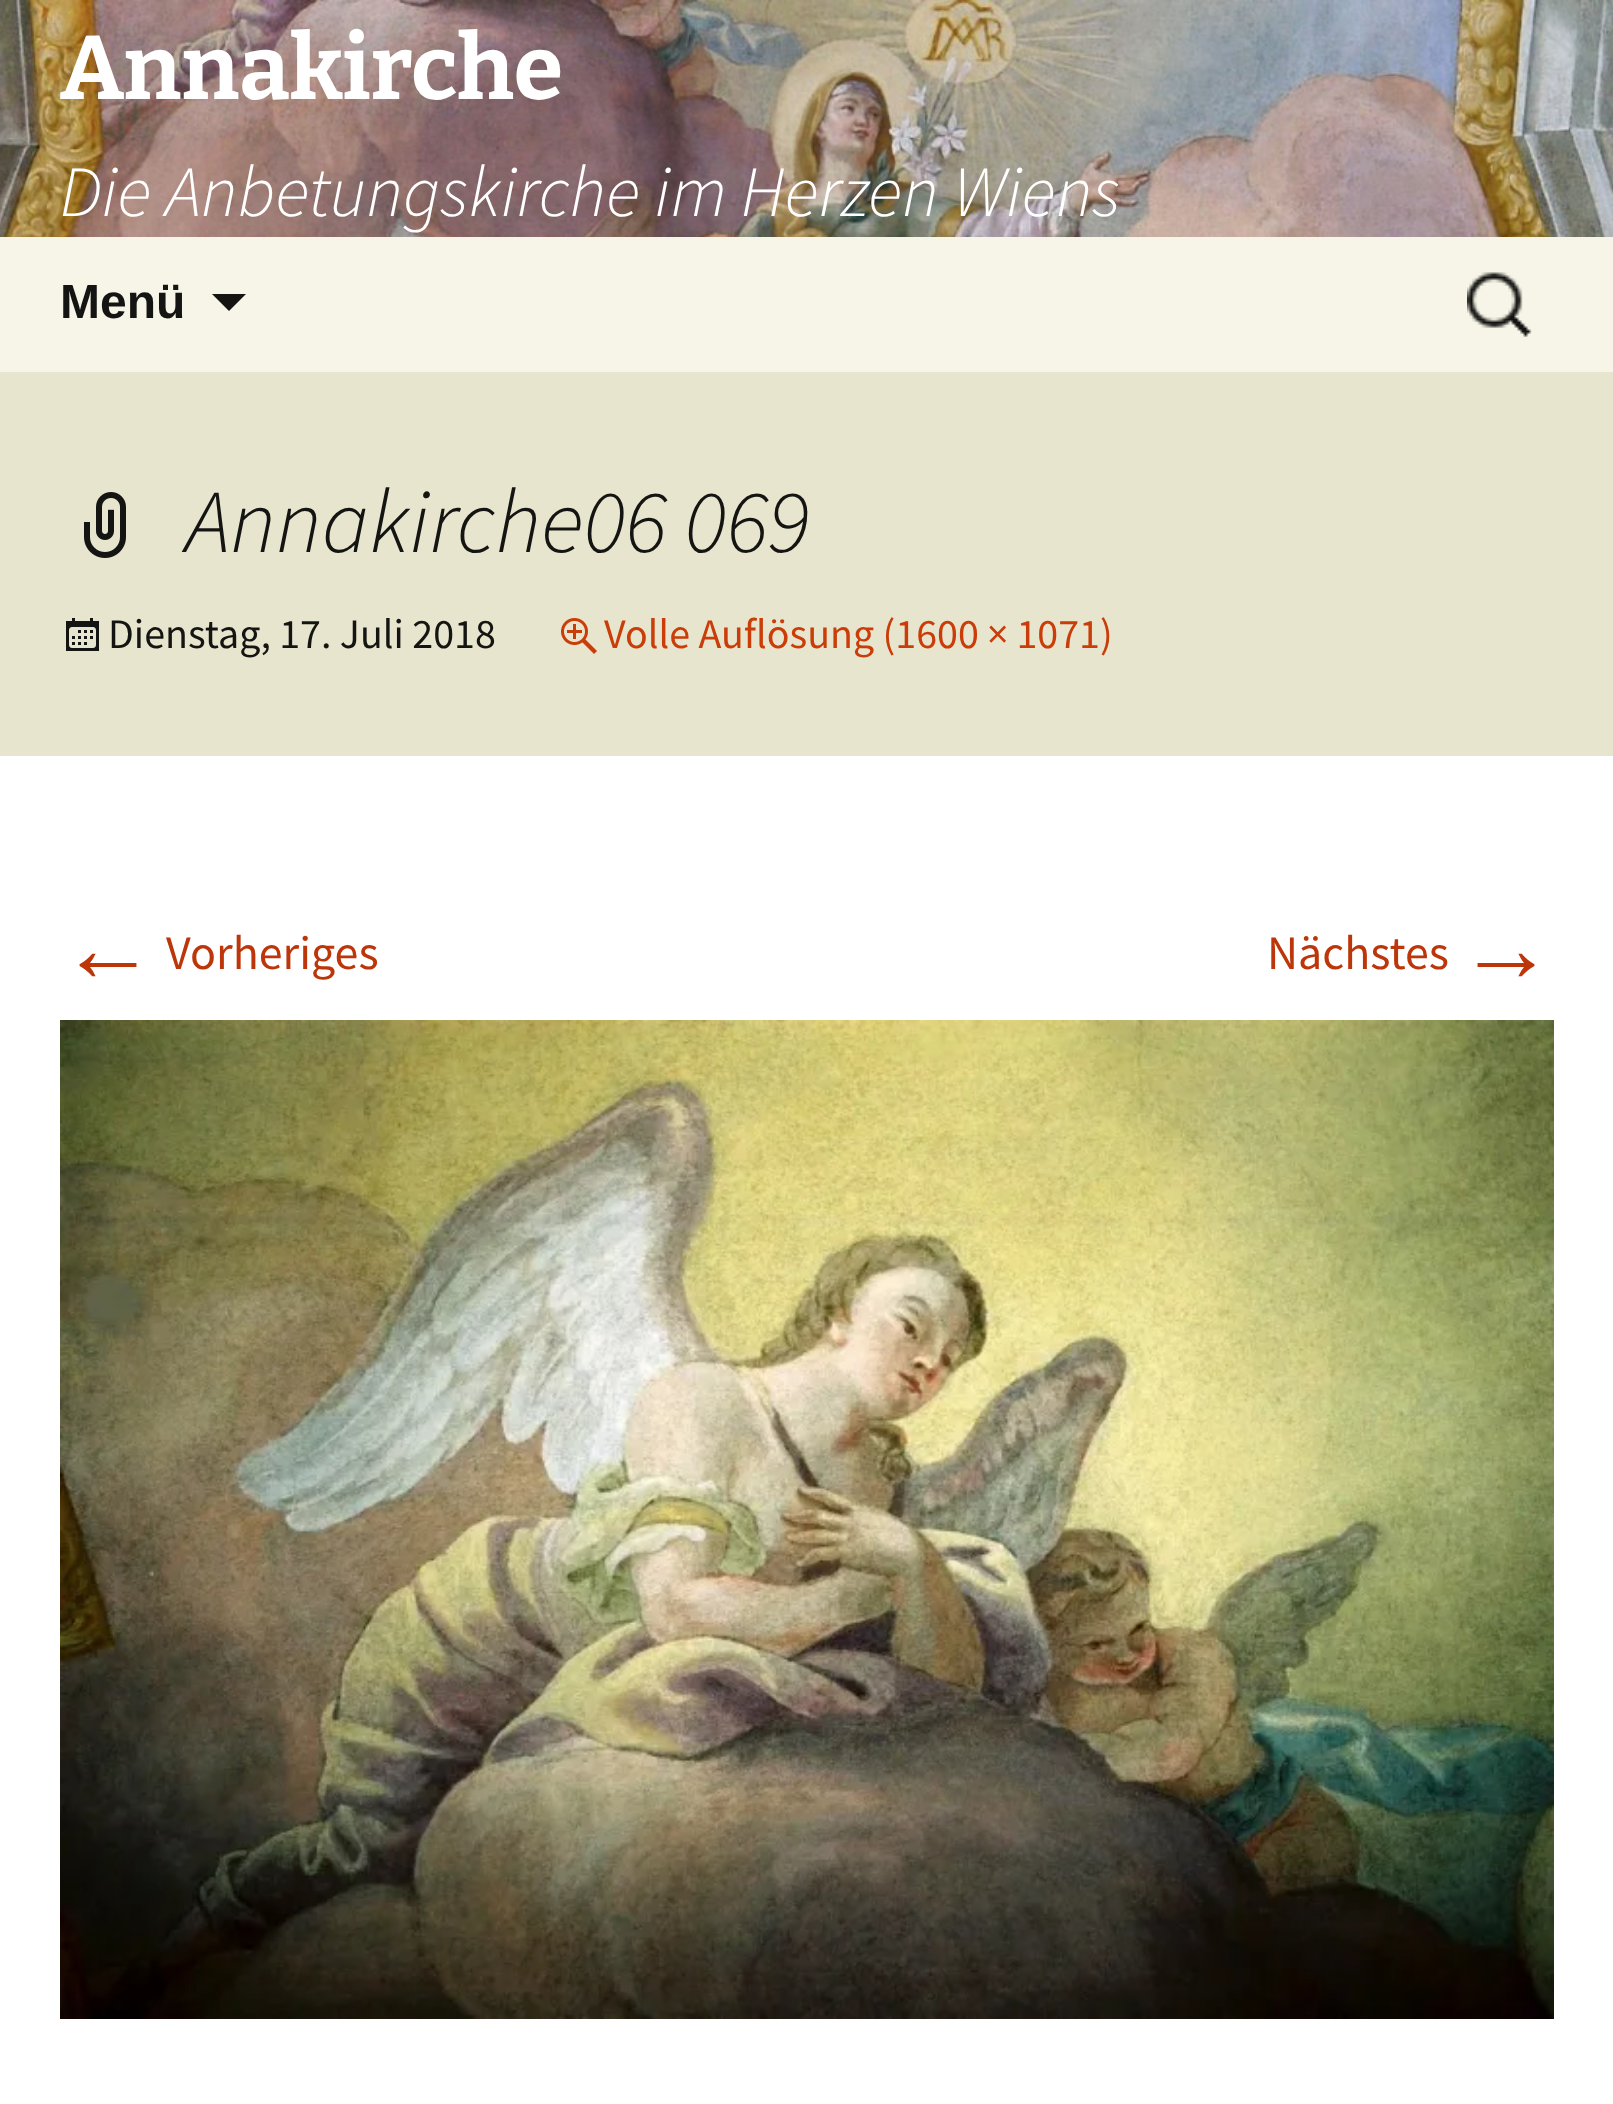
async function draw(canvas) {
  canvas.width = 1613;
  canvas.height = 2104;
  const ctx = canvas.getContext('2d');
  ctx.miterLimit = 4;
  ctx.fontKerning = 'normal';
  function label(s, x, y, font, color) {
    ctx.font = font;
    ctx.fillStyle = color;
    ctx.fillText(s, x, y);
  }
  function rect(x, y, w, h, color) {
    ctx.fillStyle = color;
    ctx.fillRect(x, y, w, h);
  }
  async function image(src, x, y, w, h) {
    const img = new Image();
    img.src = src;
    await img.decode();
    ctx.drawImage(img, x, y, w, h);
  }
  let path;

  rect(0, 0, 1613, 2104, '#fff');
  await image('assets/img1.png', 0, 0, 1613, 237);
  label('Annakirche', 60, 99, '100 90px Bitter', '#fff');
  label('Die Anbetungskirche im Herzen Wiens', 60, 216, 'italic 300 72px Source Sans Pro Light', '#fff');
  rect(0, 237, 1613, 135, '#f7f5e7');
  label('Menü', 60, 318, 'bold 48px Liberation Sans', '#141412');
  path = new Path2D('M212 294H246L229 311Z');
  ctx.fill(path);
  await image('assets/img2.png', 1467, 272, 65, 65);
  rect(0, 372, 1613, 384, '#e8e5ce');
  await image('assets/img3.png', 84, 492, 42, 66);
  label('Annakirche06 069', 186, 552, 'italic 300 90px Source Sans Pro Light', '#141412');
  await image('assets/img4.png', 66, 618, 33, 33);
  label('Dienstag, 17. Juli 2018', 108, 648, '42px Source Sans Pro', '#141412');
  await image('assets/img5.png', 561, 618, 36, 36);
  label('Volle Auflösung (1600 × 1071)', 604, 648, '42px Source Sans Pro', '#ca3c08');
  label('←', 60, 981, '96px Liberation Sans', '#bc360a');
  label('Vorheriges', 166, 969, '48px Source Sans Pro', '#bc360a');
  label('Nächstes', 1267, 969, '48px Source Sans Pro', '#bc360a');
  label('→', 1458, 981, '96px Liberation Sans', '#bc360a');
  await image('assets/img6.png', 60, 1020, 1494, 999);
}

draw(document.querySelector('canvas'));
